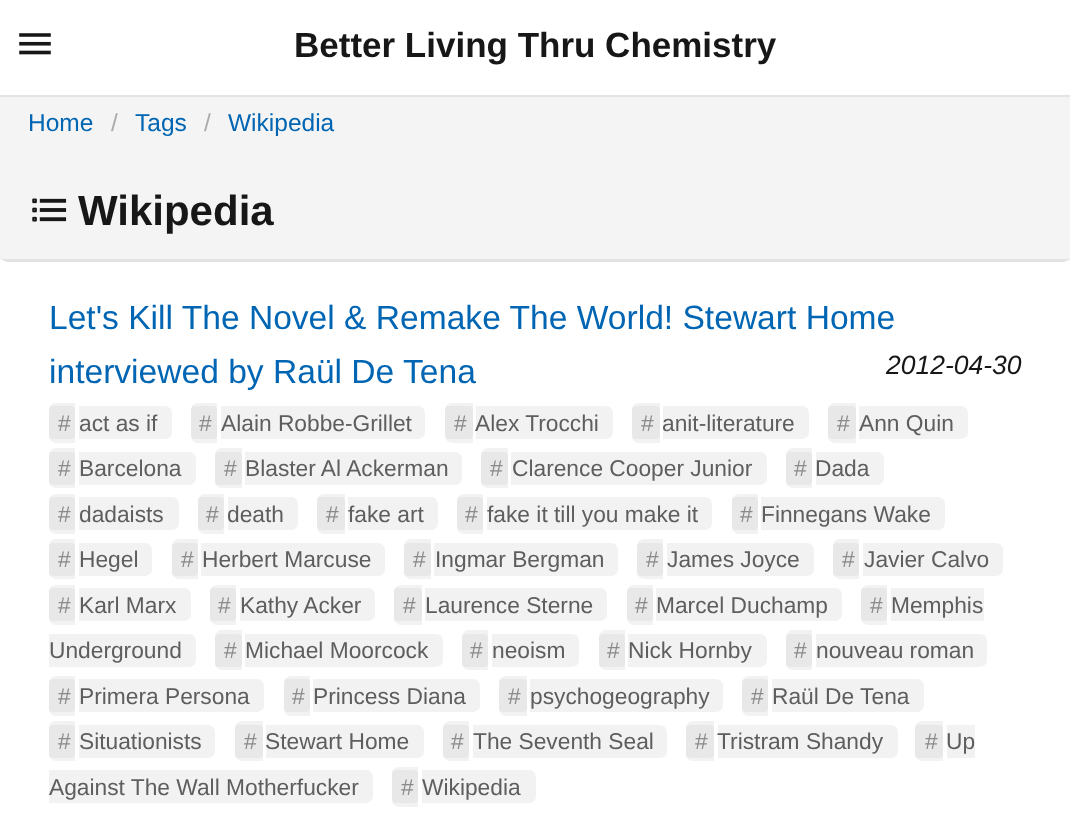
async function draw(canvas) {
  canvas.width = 1070;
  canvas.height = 820;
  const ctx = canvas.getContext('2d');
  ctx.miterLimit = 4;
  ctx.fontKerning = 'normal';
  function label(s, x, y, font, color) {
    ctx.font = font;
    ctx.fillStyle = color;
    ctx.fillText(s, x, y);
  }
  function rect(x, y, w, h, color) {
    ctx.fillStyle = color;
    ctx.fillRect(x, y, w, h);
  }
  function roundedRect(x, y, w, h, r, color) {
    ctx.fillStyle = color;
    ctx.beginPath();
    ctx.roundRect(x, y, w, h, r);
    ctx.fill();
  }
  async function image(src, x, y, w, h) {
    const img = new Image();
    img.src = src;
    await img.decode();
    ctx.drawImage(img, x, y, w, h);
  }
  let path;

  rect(0, 0, 1070, 820, '#f4f4f4');
  rect(0, 0, 1070, 95, '#fff');
  rect(0, 95, 1070, 2, '#e3e3e3');
  await image('assets/img1.png', 19, 33, 32, 22);
  label('Better Living Thru Chemistry', 294, 57, 'bold 35px Liberation Sans', '#171717');
  label('Home', 28, 131, '24.5px Liberation Sans', '#0065b3');
  label('/', 111, 131, '24.5px Liberation Sans', '#ababab');
  label('Tags', 135, 131, '24.5px Liberation Sans', '#0065b3');
  label('/', 204, 131, '24.5px Liberation Sans', '#ababab');
  label('Wikipedia', 228, 131, '24.5px Liberation Sans', '#0065b3');
  await image('assets/img2.png', 32, 198, 35, 24);
  label('Wikipedia', 78, 225, 'bold 42px Liberation Sans', '#171717');
  rect(0, 259, 1070, 561, '#fff');
  ctx.fillStyle = '#e3e3e3';
  path = new Path2D('M0 259H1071L1064 262H7Z');
  ctx.fill(path);
  label('Let\'s Kill The Novel & Remake The World! Stewart Home', 49, 329, '33.6px Liberation Sans', '#0065b3');
  label('interviewed by Raül De Tena', 49, 383, '33.6px Liberation Sans', '#0065b3');
  label('2012-04-30', 886, 374, 'italic 26.5px Liberation Sans', '#171717');
  ctx.fillStyle = '#f2f2f2';
  ctx.beginPath();
  ctx.roundRect(49, 403, 26, 40, [7, 0, 0, 7]);
  ctx.fill();
  roundedRect(49, 406, 26, 33, 4, '#e8e8e8');
  label('#', 58, 431, '22.75px Liberation Sans', '#8a8a8a');
  ctx.fillStyle = '#f2f2f2';
  ctx.beginPath();
  ctx.roundRect(79, 406, 93, 33, [0, 7, 7, 0]);
  ctx.fill();
  label('act as if', 79, 431, '22.75px Liberation Sans', '#5e5e5e');
  ctx.fillStyle = '#f2f2f2';
  ctx.beginPath();
  ctx.roundRect(191, 403, 26, 40, [7, 0, 0, 7]);
  ctx.fill();
  roundedRect(191, 406, 26, 33, 4, '#e8e8e8');
  label('#', 199, 431, '22.75px Liberation Sans', '#8a8a8a');
  ctx.fillStyle = '#f2f2f2';
  ctx.beginPath();
  ctx.roundRect(221, 406, 204, 33, [0, 7, 7, 0]);
  ctx.fill();
  label('Alain Robbe-Grillet', 221, 431, '22.75px Liberation Sans', '#5e5e5e');
  ctx.fillStyle = '#f2f2f2';
  ctx.beginPath();
  ctx.roundRect(445, 403, 28, 40, [7, 0, 0, 7]);
  ctx.fill();
  roundedRect(445, 406, 28, 33, 4, '#e8e8e8');
  label('#', 454, 431, '22.75px Liberation Sans', '#8a8a8a');
  ctx.fillStyle = '#f2f2f2';
  ctx.beginPath();
  ctx.roundRect(476, 406, 137, 33, [0, 7, 7, 0]);
  ctx.fill();
  label('Alex Trocchi', 475, 431, '22.75px Liberation Sans', '#5e5e5e');
  ctx.fillStyle = '#f2f2f2';
  ctx.beginPath();
  ctx.roundRect(632, 403, 28, 40, [7, 0, 0, 7]);
  ctx.fill();
  roundedRect(632, 406, 28, 33, 4, '#e8e8e8');
  label('#', 641, 431, '22.75px Liberation Sans', '#8a8a8a');
  ctx.fillStyle = '#f2f2f2';
  ctx.beginPath();
  ctx.roundRect(663, 406, 146, 33, [0, 7, 7, 0]);
  ctx.fill();
  label('anit-literature', 662, 431, '22.75px Liberation Sans', '#5e5e5e');
  ctx.fillStyle = '#f2f2f2';
  ctx.beginPath();
  ctx.roundRect(828, 403, 28, 40, [7, 0, 0, 7]);
  ctx.fill();
  roundedRect(828, 406, 28, 33, 4, '#e8e8e8');
  label('#', 837, 431, '22.75px Liberation Sans', '#8a8a8a');
  ctx.fillStyle = '#f2f2f2';
  ctx.beginPath();
  ctx.roundRect(859, 406, 109, 33, [0, 7, 7, 0]);
  ctx.fill();
  label('Ann Quin', 859, 431, '22.75px Liberation Sans', '#5e5e5e');
  ctx.fillStyle = '#f2f2f2';
  ctx.beginPath();
  ctx.roundRect(49, 448, 26, 40, [7, 0, 0, 7]);
  ctx.fill();
  roundedRect(49, 452, 26, 33, 4, '#e8e8e8');
  label('#', 58, 476, '22.75px Liberation Sans', '#8a8a8a');
  ctx.fillStyle = '#f2f2f2';
  ctx.beginPath();
  ctx.roundRect(79, 452, 117, 33, [0, 7, 7, 0]);
  ctx.fill();
  label('Barcelona', 79, 476, '22.75px Liberation Sans', '#5e5e5e');
  ctx.fillStyle = '#f2f2f2';
  ctx.beginPath();
  ctx.roundRect(215, 448, 27, 40, [7, 0, 0, 7]);
  ctx.fill();
  roundedRect(215, 452, 27, 33, 4, '#e8e8e8');
  label('#', 224, 476, '22.75px Liberation Sans', '#8a8a8a');
  ctx.fillStyle = '#f2f2f2';
  ctx.beginPath();
  ctx.roundRect(245, 452, 217, 33, [0, 7, 7, 0]);
  ctx.fill();
  label('Blaster Al Ackerman', 245, 476, '22.75px Liberation Sans', '#5e5e5e');
  ctx.fillStyle = '#f2f2f2';
  ctx.beginPath();
  ctx.roundRect(481, 448, 27, 40, [7, 0, 0, 7]);
  ctx.fill();
  roundedRect(481, 452, 27, 33, 4, '#e8e8e8');
  label('#', 490, 476, '22.75px Liberation Sans', '#8a8a8a');
  ctx.fillStyle = '#f2f2f2';
  ctx.beginPath();
  ctx.roundRect(511, 452, 256, 33, [0, 7, 7, 0]);
  ctx.fill();
  label('Clarence Cooper Junior', 512, 476, '22.75px Liberation Sans', '#5e5e5e');
  ctx.fillStyle = '#f2f2f2';
  ctx.beginPath();
  ctx.roundRect(786, 448, 26, 40, [7, 0, 0, 7]);
  ctx.fill();
  roundedRect(786, 452, 26, 33, 4, '#e8e8e8');
  label('#', 794, 476, '22.75px Liberation Sans', '#8a8a8a');
  ctx.fillStyle = '#f2f2f2';
  ctx.beginPath();
  ctx.roundRect(816, 452, 68, 33, [0, 7, 7, 0]);
  ctx.fill();
  label('Dada', 815, 476, '22.75px Liberation Sans', '#5e5e5e');
  ctx.fillStyle = '#f2f2f2';
  ctx.beginPath();
  ctx.roundRect(49, 494, 26, 40, [7, 0, 0, 7]);
  ctx.fill();
  roundedRect(49, 497, 26, 33, 4, '#e8e8e8');
  label('#', 58, 522, '22.75px Liberation Sans', '#8a8a8a');
  ctx.fillStyle = '#f2f2f2';
  ctx.beginPath();
  ctx.roundRect(79, 497, 100, 33, [0, 7, 7, 0]);
  ctx.fill();
  label('dadaists', 79, 522, '22.75px Liberation Sans', '#5e5e5e');
  ctx.fillStyle = '#f2f2f2';
  ctx.beginPath();
  ctx.roundRect(198, 494, 26, 40, [7, 0, 0, 7]);
  ctx.fill();
  roundedRect(198, 497, 26, 33, 4, '#e8e8e8');
  label('#', 206, 522, '22.75px Liberation Sans', '#8a8a8a');
  ctx.fillStyle = '#f2f2f2';
  ctx.beginPath();
  ctx.roundRect(228, 497, 70, 33, [0, 7, 7, 0]);
  ctx.fill();
  label('death', 227, 522, '22.75px Liberation Sans', '#5e5e5e');
  ctx.fillStyle = '#f2f2f2';
  ctx.beginPath();
  ctx.roundRect(317, 494, 28, 40, [7, 0, 0, 7]);
  ctx.fill();
  roundedRect(317, 497, 28, 33, 4, '#e8e8e8');
  label('#', 326, 522, '22.75px Liberation Sans', '#8a8a8a');
  ctx.fillStyle = '#f2f2f2';
  ctx.beginPath();
  ctx.roundRect(348, 497, 90, 33, [0, 7, 7, 0]);
  ctx.fill();
  label('fake art', 348, 522, '22.75px Liberation Sans', '#5e5e5e');
  ctx.fillStyle = '#f2f2f2';
  ctx.beginPath();
  ctx.roundRect(457, 494, 26, 40, [7, 0, 0, 7]);
  ctx.fill();
  roundedRect(457, 497, 26, 33, 4, '#e8e8e8');
  label('#', 465, 522, '22.75px Liberation Sans', '#8a8a8a');
  ctx.fillStyle = '#f2f2f2';
  ctx.beginPath();
  ctx.roundRect(487, 497, 225, 33, [0, 7, 7, 0]);
  ctx.fill();
  label('fake it till you make it', 487, 522, '22.75px Liberation Sans', '#5e5e5e');
  ctx.fillStyle = '#f2f2f2';
  ctx.beginPath();
  ctx.roundRect(732, 494, 26, 40, [7, 0, 0, 7]);
  ctx.fill();
  roundedRect(732, 497, 26, 33, 4, '#e8e8e8');
  label('#', 740, 522, '22.75px Liberation Sans', '#8a8a8a');
  ctx.fillStyle = '#f2f2f2';
  ctx.beginPath();
  ctx.roundRect(761, 497, 184, 33, [0, 7, 7, 0]);
  ctx.fill();
  label('Finnegans Wake', 761, 522, '22.75px Liberation Sans', '#5e5e5e');
  ctx.fillStyle = '#f2f2f2';
  ctx.beginPath();
  ctx.roundRect(49, 539, 26, 40, [7, 0, 0, 7]);
  ctx.fill();
  roundedRect(49, 543, 26, 33, 4, '#e8e8e8');
  label('#', 58, 567, '22.75px Liberation Sans', '#8a8a8a');
  ctx.fillStyle = '#f2f2f2';
  ctx.beginPath();
  ctx.roundRect(79, 543, 73, 33, [0, 7, 7, 0]);
  ctx.fill();
  label('Hegel', 79, 567, '22.75px Liberation Sans', '#5e5e5e');
  ctx.fillStyle = '#f2f2f2';
  ctx.beginPath();
  ctx.roundRect(172, 539, 26, 40, [7, 0, 0, 7]);
  ctx.fill();
  roundedRect(172, 543, 26, 33, 4, '#e8e8e8');
  label('#', 181, 567, '22.75px Liberation Sans', '#8a8a8a');
  ctx.fillStyle = '#f2f2f2';
  ctx.beginPath();
  ctx.roundRect(201, 543, 184, 33, [0, 7, 7, 0]);
  ctx.fill();
  label('Herbert Marcuse', 202, 567, '22.75px Liberation Sans', '#5e5e5e');
  ctx.fillStyle = '#f2f2f2';
  ctx.beginPath();
  ctx.roundRect(404, 539, 27, 40, [7, 0, 0, 7]);
  ctx.fill();
  roundedRect(404, 543, 27, 33, 4, '#e8e8e8');
  label('#', 413, 567, '22.75px Liberation Sans', '#8a8a8a');
  ctx.fillStyle = '#f2f2f2';
  ctx.beginPath();
  ctx.roundRect(434, 543, 184, 33, [0, 7, 7, 0]);
  ctx.fill();
  label('Ingmar Bergman', 435, 567, '22.75px Liberation Sans', '#5e5e5e');
  ctx.fillStyle = '#f2f2f2';
  ctx.beginPath();
  ctx.roundRect(637, 539, 26, 40, [7, 0, 0, 7]);
  ctx.fill();
  roundedRect(637, 543, 26, 33, 4, '#e8e8e8');
  label('#', 646, 567, '22.75px Liberation Sans', '#8a8a8a');
  ctx.fillStyle = '#f2f2f2';
  ctx.beginPath();
  ctx.roundRect(667, 543, 147, 33, [0, 7, 7, 0]);
  ctx.fill();
  label('James Joyce', 667, 567, '22.75px Liberation Sans', '#5e5e5e');
  ctx.fillStyle = '#f2f2f2';
  ctx.beginPath();
  ctx.roundRect(833, 539, 26, 40, [7, 0, 0, 7]);
  ctx.fill();
  roundedRect(833, 543, 26, 33, 4, '#e8e8e8');
  label('#', 842, 567, '22.75px Liberation Sans', '#8a8a8a');
  ctx.fillStyle = '#f2f2f2';
  ctx.beginPath();
  ctx.roundRect(863, 543, 140, 33, [0, 7, 7, 0]);
  ctx.fill();
  label('Javier Calvo', 864, 567, '22.75px Liberation Sans', '#5e5e5e');
  ctx.fillStyle = '#f2f2f2';
  ctx.beginPath();
  ctx.roundRect(49, 585, 26, 40, [7, 0, 0, 7]);
  ctx.fill();
  roundedRect(49, 588, 26, 33, 4, '#e8e8e8');
  label('#', 58, 613, '22.75px Liberation Sans', '#8a8a8a');
  ctx.fillStyle = '#f2f2f2';
  ctx.beginPath();
  ctx.roundRect(79, 588, 112, 33, [0, 7, 7, 0]);
  ctx.fill();
  label('Karl Marx', 79, 613, '22.75px Liberation Sans', '#5e5e5e');
  ctx.fillStyle = '#f2f2f2';
  ctx.beginPath();
  ctx.roundRect(210, 585, 26, 40, [7, 0, 0, 7]);
  ctx.fill();
  roundedRect(210, 588, 26, 33, 4, '#e8e8e8');
  label('#', 218, 613, '22.75px Liberation Sans', '#8a8a8a');
  ctx.fillStyle = '#f2f2f2';
  ctx.beginPath();
  ctx.roundRect(240, 588, 135, 33, [0, 7, 7, 0]);
  ctx.fill();
  label('Kathy Acker', 240, 613, '22.75px Liberation Sans', '#5e5e5e');
  ctx.fillStyle = '#f2f2f2';
  ctx.beginPath();
  ctx.roundRect(394, 585, 28, 40, [7, 0, 0, 7]);
  ctx.fill();
  roundedRect(394, 588, 28, 33, 4, '#e8e8e8');
  label('#', 403, 613, '22.75px Liberation Sans', '#8a8a8a');
  ctx.fillStyle = '#f2f2f2';
  ctx.beginPath();
  ctx.roundRect(425, 588, 182, 33, [0, 7, 7, 0]);
  ctx.fill();
  label('Laurence Sterne', 425, 613, '22.75px Liberation Sans', '#5e5e5e');
  ctx.fillStyle = '#f2f2f2';
  ctx.beginPath();
  ctx.roundRect(627, 585, 26, 40, [7, 0, 0, 7]);
  ctx.fill();
  roundedRect(627, 588, 26, 33, 4, '#e8e8e8');
  label('#', 635, 613, '22.75px Liberation Sans', '#8a8a8a');
  ctx.fillStyle = '#f2f2f2';
  ctx.beginPath();
  ctx.roundRect(656, 588, 186, 33, [0, 7, 7, 0]);
  ctx.fill();
  label('Marcel Duchamp', 656, 613, '22.75px Liberation Sans', '#5e5e5e');
  ctx.fillStyle = '#f2f2f2';
  ctx.beginPath();
  ctx.roundRect(861, 585, 26, 40, [7, 0, 0, 7]);
  ctx.fill();
  roundedRect(861, 588, 26, 33, 4, '#e8e8e8');
  label('#', 870, 613, '22.75px Liberation Sans', '#8a8a8a');
  rect(891, 588, 93, 33, '#f2f2f2');
  label('Memphis', 891, 613, '22.75px Liberation Sans', '#5e5e5e');
  ctx.fillStyle = '#f2f2f2';
  ctx.beginPath();
  ctx.roundRect(49, 634, 147, 33, [0, 7, 7, 0]);
  ctx.fill();
  label('Underground', 49, 658, '22.75px Liberation Sans', '#5e5e5e');
  ctx.fillStyle = '#f2f2f2';
  ctx.beginPath();
  ctx.roundRect(215, 630, 27, 40, [7, 0, 0, 7]);
  ctx.fill();
  roundedRect(215, 634, 27, 33, 4, '#e8e8e8');
  label('#', 224, 658, '22.75px Liberation Sans', '#8a8a8a');
  ctx.fillStyle = '#f2f2f2';
  ctx.beginPath();
  ctx.roundRect(245, 634, 198, 33, [0, 7, 7, 0]);
  ctx.fill();
  label('Michael Moorcock', 245, 658, '22.75px Liberation Sans', '#5e5e5e');
  ctx.fillStyle = '#f2f2f2';
  ctx.beginPath();
  ctx.roundRect(462, 630, 26, 40, [7, 0, 0, 7]);
  ctx.fill();
  roundedRect(462, 634, 26, 33, 4, '#e8e8e8');
  label('#', 470, 658, '22.75px Liberation Sans', '#8a8a8a');
  ctx.fillStyle = '#f2f2f2';
  ctx.beginPath();
  ctx.roundRect(492, 634, 87, 33, [0, 7, 7, 0]);
  ctx.fill();
  label('neoism', 492, 658, '22.75px Liberation Sans', '#5e5e5e');
  ctx.fillStyle = '#f2f2f2';
  ctx.beginPath();
  ctx.roundRect(599, 630, 26, 40, [7, 0, 0, 7]);
  ctx.fill();
  roundedRect(599, 634, 26, 33, 4, '#e8e8e8');
  label('#', 607, 658, '22.75px Liberation Sans', '#8a8a8a');
  ctx.fillStyle = '#f2f2f2';
  ctx.beginPath();
  ctx.roundRect(628, 634, 139, 33, [0, 7, 7, 0]);
  ctx.fill();
  label('Nick Hornby', 628, 658, '22.75px Liberation Sans', '#5e5e5e');
  ctx.fillStyle = '#f2f2f2';
  ctx.beginPath();
  ctx.roundRect(786, 630, 26, 40, [7, 0, 0, 7]);
  ctx.fill();
  roundedRect(786, 634, 26, 33, 4, '#e8e8e8');
  label('#', 794, 658, '22.75px Liberation Sans', '#8a8a8a');
  ctx.fillStyle = '#f2f2f2';
  ctx.beginPath();
  ctx.roundRect(816, 634, 171, 33, [0, 7, 7, 0]);
  ctx.fill();
  label('nouveau roman', 816, 658, '22.75px Liberation Sans', '#5e5e5e');
  ctx.fillStyle = '#f2f2f2';
  ctx.beginPath();
  ctx.roundRect(49, 676, 26, 40, [7, 0, 0, 7]);
  ctx.fill();
  roundedRect(49, 679, 26, 33, 4, '#e8e8e8');
  label('#', 58, 704, '22.75px Liberation Sans', '#8a8a8a');
  ctx.fillStyle = '#f2f2f2';
  ctx.beginPath();
  ctx.roundRect(79, 679, 185, 33, [0, 7, 7, 0]);
  ctx.fill();
  label('Primera Persona', 79, 704, '22.75px Liberation Sans', '#5e5e5e');
  ctx.fillStyle = '#f2f2f2';
  ctx.beginPath();
  ctx.roundRect(284, 676, 26, 40, [7, 0, 0, 7]);
  ctx.fill();
  roundedRect(284, 679, 26, 33, 4, '#e8e8e8');
  label('#', 292, 704, '22.75px Liberation Sans', '#8a8a8a');
  ctx.fillStyle = '#f2f2f2';
  ctx.beginPath();
  ctx.roundRect(313, 679, 167, 33, [0, 7, 7, 0]);
  ctx.fill();
  label('Princess Diana', 313, 704, '22.75px Liberation Sans', '#5e5e5e');
  ctx.fillStyle = '#f2f2f2';
  ctx.beginPath();
  ctx.roundRect(499, 676, 28, 40, [7, 0, 0, 7]);
  ctx.fill();
  roundedRect(499, 679, 28, 33, 4, '#e8e8e8');
  label('#', 508, 704, '22.75px Liberation Sans', '#8a8a8a');
  ctx.fillStyle = '#f2f2f2';
  ctx.beginPath();
  ctx.roundRect(530, 679, 193, 33, [0, 7, 7, 0]);
  ctx.fill();
  label('psychogeography', 530, 704, '22.75px Liberation Sans', '#5e5e5e');
  ctx.fillStyle = '#f2f2f2';
  ctx.beginPath();
  ctx.roundRect(742, 676, 26, 40, [7, 0, 0, 7]);
  ctx.fill();
  roundedRect(742, 679, 26, 33, 4, '#e8e8e8');
  label('#', 751, 704, '22.75px Liberation Sans', '#8a8a8a');
  ctx.fillStyle = '#f2f2f2';
  ctx.beginPath();
  ctx.roundRect(772, 679, 152, 33, [0, 7, 7, 0]);
  ctx.fill();
  label('Raül De Tena', 772, 704, '22.75px Liberation Sans', '#5e5e5e');
  ctx.fillStyle = '#f2f2f2';
  ctx.beginPath();
  ctx.roundRect(49, 721, 26, 40, [7, 0, 0, 7]);
  ctx.fill();
  roundedRect(49, 725, 26, 33, 4, '#e8e8e8');
  label('#', 58, 749, '22.75px Liberation Sans', '#8a8a8a');
  ctx.fillStyle = '#f2f2f2';
  ctx.beginPath();
  ctx.roundRect(79, 725, 136, 33, [0, 7, 7, 0]);
  ctx.fill();
  label('Situationists', 79, 749, '22.75px Liberation Sans', '#5e5e5e');
  ctx.fillStyle = '#f2f2f2';
  ctx.beginPath();
  ctx.roundRect(235, 721, 28, 40, [7, 0, 0, 7]);
  ctx.fill();
  roundedRect(235, 725, 28, 33, 4, '#e8e8e8');
  label('#', 244, 749, '22.75px Liberation Sans', '#8a8a8a');
  ctx.fillStyle = '#f2f2f2';
  ctx.beginPath();
  ctx.roundRect(266, 725, 158, 33, [0, 7, 7, 0]);
  ctx.fill();
  label('Stewart Home', 265, 749, '22.75px Liberation Sans', '#5e5e5e');
  ctx.fillStyle = '#f2f2f2';
  ctx.beginPath();
  ctx.roundRect(443, 721, 26, 40, [7, 0, 0, 7]);
  ctx.fill();
  roundedRect(443, 725, 26, 33, 4, '#e8e8e8');
  label('#', 451, 749, '22.75px Liberation Sans', '#8a8a8a');
  ctx.fillStyle = '#f2f2f2';
  ctx.beginPath();
  ctx.roundRect(473, 725, 194, 33, [0, 7, 7, 0]);
  ctx.fill();
  label('The Seventh Seal', 473, 749, '22.75px Liberation Sans', '#5e5e5e');
  ctx.fillStyle = '#f2f2f2';
  ctx.beginPath();
  ctx.roundRect(686, 721, 28, 40, [7, 0, 0, 7]);
  ctx.fill();
  roundedRect(686, 725, 28, 33, 4, '#e8e8e8');
  label('#', 695, 749, '22.75px Liberation Sans', '#8a8a8a');
  ctx.fillStyle = '#f2f2f2';
  ctx.beginPath();
  ctx.roundRect(718, 725, 180, 33, [0, 7, 7, 0]);
  ctx.fill();
  label('Tristram Shandy', 717, 749, '22.75px Liberation Sans', '#5e5e5e');
  ctx.fillStyle = '#f2f2f2';
  ctx.beginPath();
  ctx.roundRect(915, 721, 28, 40, [7, 0, 0, 7]);
  ctx.fill();
  roundedRect(915, 725, 28, 33, 4, '#e8e8e8');
  label('#', 925, 749, '22.75px Liberation Sans', '#8a8a8a');
  rect(947, 725, 28, 33, '#f2f2f2');
  label('Up', 946, 749, '22.75px Liberation Sans', '#5e5e5e');
  ctx.fillStyle = '#f2f2f2';
  ctx.beginPath();
  ctx.roundRect(49, 770, 324, 33, [0, 7, 7, 0]);
  ctx.fill();
  label('Against The Wall Motherfucker', 49, 795, '22.75px Liberation Sans', '#5e5e5e');
  ctx.fillStyle = '#f2f2f2';
  ctx.beginPath();
  ctx.roundRect(392, 767, 26, 40, [7, 0, 0, 7]);
  ctx.fill();
  roundedRect(392, 770, 26, 33, 4, '#e8e8e8');
  label('#', 401, 795, '22.75px Liberation Sans', '#8a8a8a');
  ctx.fillStyle = '#f2f2f2';
  ctx.beginPath();
  ctx.roundRect(422, 770, 114, 33, [0, 7, 7, 0]);
  ctx.fill();
  label('Wikipedia', 422, 795, '22.75px Liberation Sans', '#5e5e5e');
}

draw(document.querySelector('canvas'));
